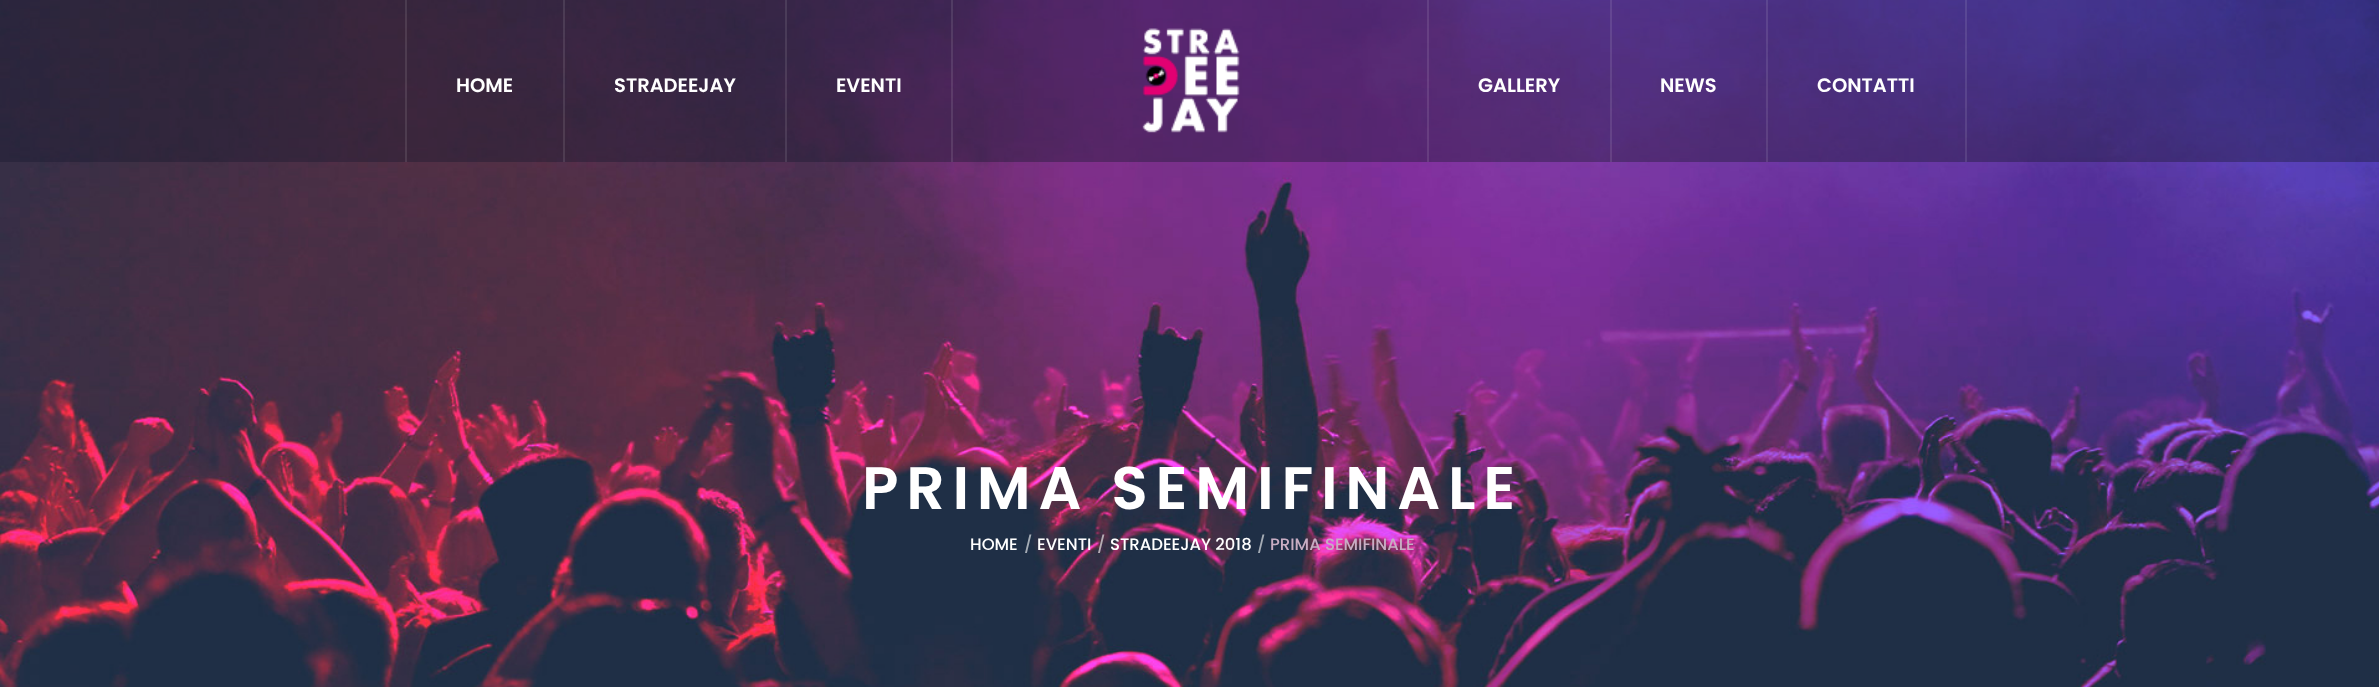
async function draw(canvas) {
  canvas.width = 2379;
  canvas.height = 687;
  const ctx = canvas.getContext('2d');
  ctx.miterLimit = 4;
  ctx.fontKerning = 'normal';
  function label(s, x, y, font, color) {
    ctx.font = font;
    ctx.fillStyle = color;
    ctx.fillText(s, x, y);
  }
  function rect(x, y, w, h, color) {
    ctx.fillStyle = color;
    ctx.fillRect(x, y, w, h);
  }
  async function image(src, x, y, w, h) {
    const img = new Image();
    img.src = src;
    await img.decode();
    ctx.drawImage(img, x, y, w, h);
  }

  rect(0, 0, 2379, 687, '#fff');
  await image('assets/img2.png', 0, 0, 2379, 687);
  rect(0, 0, 2379, 162, '#191a3066');
  rect(405, 0, 2, 162, '#ffffff1a');
  label('HOME', 456, 92, '600 19.5px Poppins', '#fff');
  rect(563, 0, 2, 162, '#ffffff1a');
  label('STRADEEJAY', 614, 92, '600 19.5px Poppins', '#fff');
  rect(951, 0, 2, 162, '#ffffff1a');
  rect(785, 0, 2, 162, '#ffffff1a');
  label('EVENTI', 836, 92, '600 19.5px Poppins', '#fff');
  await image('assets/img1.png', 1142, 28, 98, 105);
  rect(1427, 0, 2, 162, '#ffffff1a');
  label('GALLERY', 1478, 92, '600 19.5px Poppins', '#fff');
  rect(1610, 0, 2, 162, '#ffffff1a');
  label('NEWS', 1660, 92, '600 19.5px Poppins', '#fff');
  rect(1965, 0, 2, 162, '#ffffff1a');
  rect(1766, 0, 2, 162, '#ffffff1a');
  label('CONTATTI', 1817, 92, '600 19.5px Poppins', '#fff');
  ctx.letterSpacing = '7.75px';
  label('PRIMA SEMIFINALE', 862, 509, '600 60px Poppins', '#fff');
  ctx.letterSpacing = '0px';
  label('HOME', 970, 550, '500 16.5px Poppins', '#fff');
  label('/', 1024, 550, '500 16.5px Poppins', '#a5acb5');
  label('EVENTI', 1037, 550, '500 16.5px Poppins', '#fff');
  label('/', 1097, 550, '500 16.5px Poppins', '#b5acb4');
  label('STRADEEJAY 2018', 1110, 550, '500 16.5px Poppins', '#fff');
  label('/', 1257, 550, '500 16.5px Poppins', '#a5acb5');
  label('PRIMA SEMIFINALE', 1270, 550, '500 16.5px Poppins', '#c8adc3');
}

draw(document.querySelector('canvas'));
